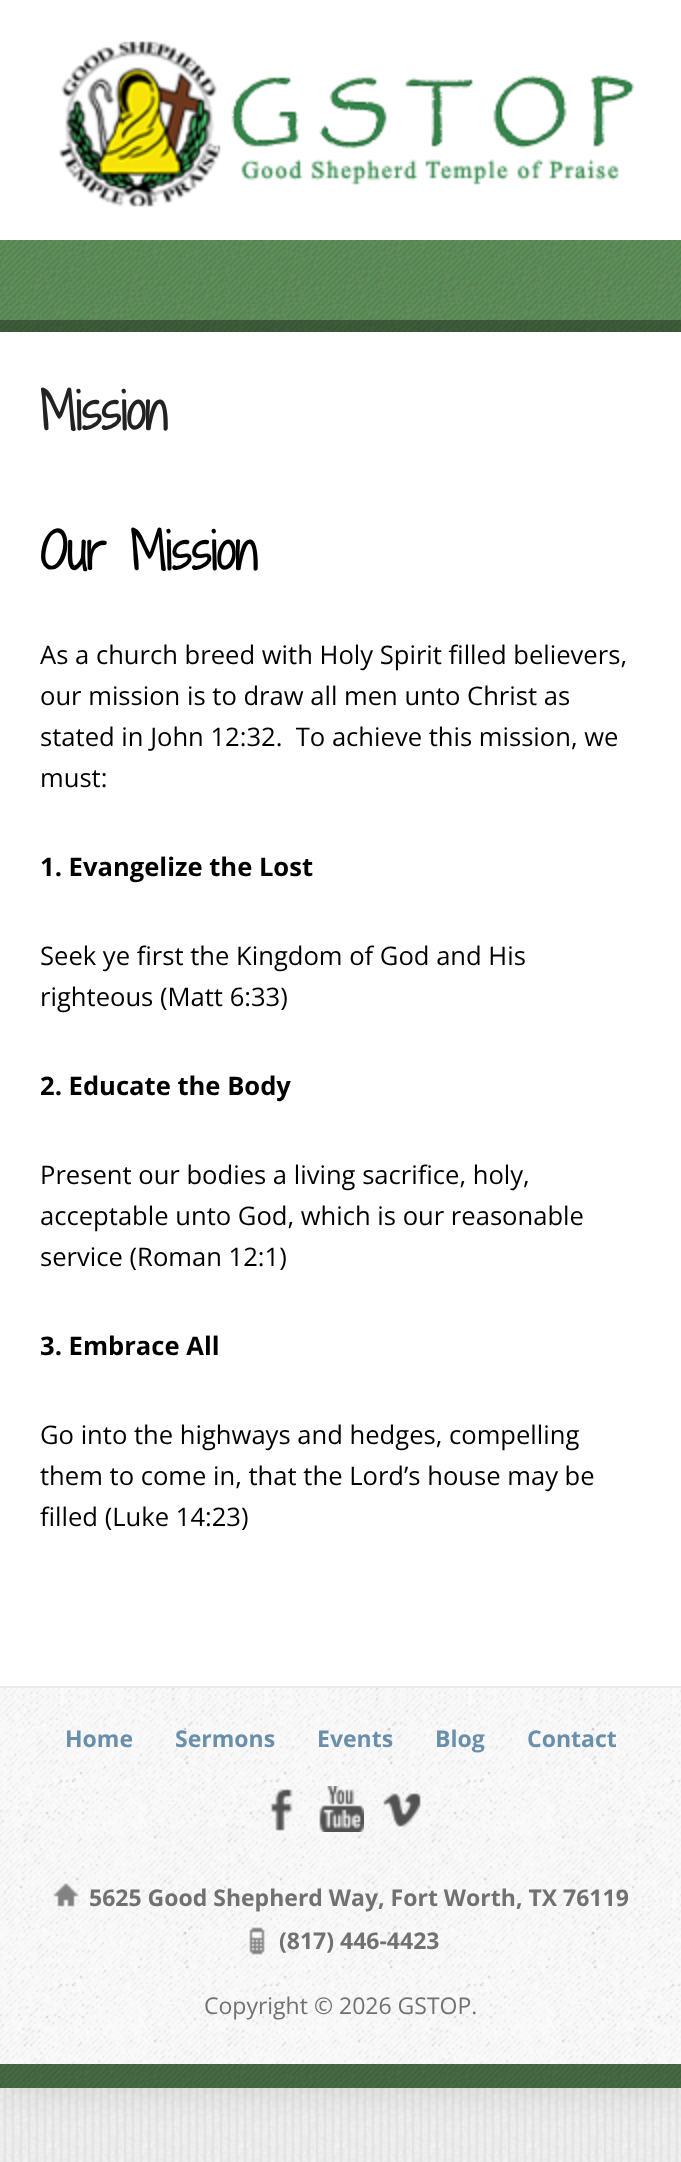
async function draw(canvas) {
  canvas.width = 681;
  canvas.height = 2162;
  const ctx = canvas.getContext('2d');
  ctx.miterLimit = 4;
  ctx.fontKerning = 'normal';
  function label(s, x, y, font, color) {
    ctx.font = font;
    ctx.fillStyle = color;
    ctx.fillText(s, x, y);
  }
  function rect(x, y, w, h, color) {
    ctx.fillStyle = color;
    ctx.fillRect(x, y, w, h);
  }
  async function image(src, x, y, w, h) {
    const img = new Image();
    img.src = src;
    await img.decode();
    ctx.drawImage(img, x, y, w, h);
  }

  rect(0, 0, 681, 2162, '#fff');
  await image('assets/img1.png', 0, 2088, 681, 74);
  ctx.fillStyle = '#0000001f';
  ctx.filter = 'blur(20px)';
  ctx.beginPath();
  ctx.rect(0, 0, 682, 2088);
  ctx.fill();
  ctx.filter = 'none';
  rect(0, 0, 681, 1686, '#fff');
  await image('assets/img2.png', 59, 41, 576, 166);
  rect(0, 240, 681, 92, '#51894b');
  await image('assets/img3.png', 0, 240, 681, 92);
  rect(0, 320, 681, 12, '#00000059');
  label('Mission', 40, 430, 'bold 48.5px Shadows Into Light Two', '#222');
  label('Our Mission', 40, 570, 'bold 48.5px Shadows Into Light Two', '#000');
  label('As a church breed with Holy Spirit filled believers,', 40, 664, '25.6px Open Sans', '#000');
  label('our mission is to draw all men unto Christ as', 40, 705, '25.6px Open Sans', '#000');
  label('stated in John 12:32.  To achieve this mission, we', 40, 746, '25.6px Open Sans', '#000');
  label('must:', 40, 787, '25.6px Open Sans', '#000');
  label('1. Evangelize the Lost', 40, 876, 'bold 25.6px Open Sans', '#000');
  label('Seek ye first the Kingdom of God and His', 40, 965, '25.6px Open Sans', '#000');
  label('righteous (Matt 6:33)', 40, 1006, '25.6px Open Sans', '#000');
  label('2. Educate the Body', 40, 1095, 'bold 25.6px Open Sans', '#000');
  label('Present our bodies a living sacrifice, holy,', 40, 1184, '25.6px Open Sans', '#000');
  label('acceptable unto God, which is our reasonable', 40, 1225, '25.6px Open Sans', '#000');
  label('service (Roman 12:1)', 40, 1266, '25.6px Open Sans', '#000');
  label('3. Embrace All', 40, 1355, 'bold 25.6px Open Sans', '#000');
  label('Go into the highways and hedges, compelling', 40, 1444, '25.6px Open Sans', '#000');
  label('them to come in, that the Lord’s house may be', 40, 1485, '25.6px Open Sans', '#000');
  label('filled (Luke 14:23)', 40, 1526, '25.6px Open Sans', '#000');
  await image('assets/img4.png', 0, 1688, 681, 376);
  rect(0, 1686, 681, 2, '#eaeaea');
  label('Home', 65, 1747, 'bold 23px Open Sans', '#6a8fab');
  label('Sermons', 175, 1747, 'bold 23px Open Sans', '#6a8fab');
  label('Events', 317, 1747, 'bold 23px Open Sans', '#6a8fab');
  label('Blog', 435, 1747, 'bold 23px Open Sans', '#6a8fab');
  label('Contact', 527, 1747, 'bold 23px Open Sans', '#6a8fab');
  await image('assets/img5.png', 270, 1789, 23, 42);
  await image('assets/img6.png', 319, 1786, 45, 46);
  await image('assets/img7.png', 383, 1793, 38, 34);
  await image('assets/img8.png', 53, 1883, 26, 24);
  label('5625 Good Shepherd Way, Fort Worth, TX 76119', 89, 1906, 'bold 23px Open Sans', '#717171');
  await image('assets/img9.png', 249, 1927, 16, 28);
  label('(817) 446-4423', 279, 1949, 'bold 23px Open Sans', '#717171');
  label('Copyright © 2026 GSTOP.', 204, 2014, '23px Open Sans', '#717171');
  rect(0, 2064, 681, 24, '#51894b');
  await image('assets/img10.png', 0, 2064, 681, 24);
}

draw(document.querySelector('canvas'));
